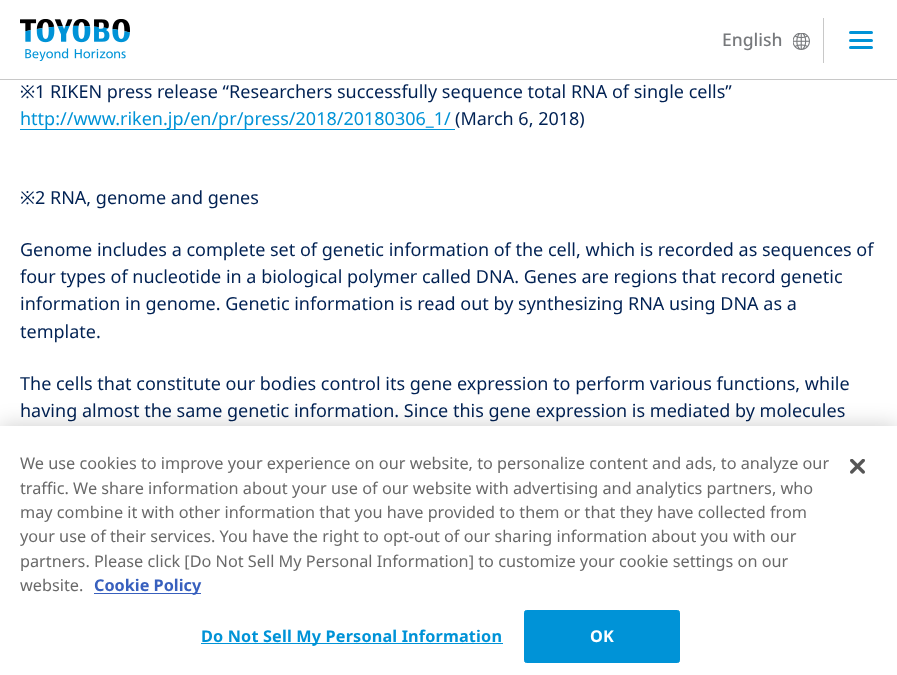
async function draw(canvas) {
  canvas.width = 897;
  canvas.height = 675;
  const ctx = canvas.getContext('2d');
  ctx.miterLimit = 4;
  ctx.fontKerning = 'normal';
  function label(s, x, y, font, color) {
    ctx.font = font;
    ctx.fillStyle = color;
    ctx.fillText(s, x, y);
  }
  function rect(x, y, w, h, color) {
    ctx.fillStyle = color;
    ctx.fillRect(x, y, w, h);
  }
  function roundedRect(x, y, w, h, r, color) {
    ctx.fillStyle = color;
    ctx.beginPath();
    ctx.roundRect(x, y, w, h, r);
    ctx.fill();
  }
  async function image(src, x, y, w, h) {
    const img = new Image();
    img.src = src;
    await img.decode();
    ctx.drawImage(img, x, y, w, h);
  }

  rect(0, 0, 897, 675, '#fff');
  await image('assets/img1.png', 20, 19, 110, 42);
  label('English', 722, 46, '500 17.5px Noto Sans', '#77797c');
  await image('assets/img2.png', 793, 33, 17, 17);
  rect(823, 18, 1, 45, '#c8c8c8');
  roundedRect(849, 39, 24, 3, 1.5, '#0093d7');
  roundedRect(849, 31, 24, 3, 1.5, '#0093d7');
  roundedRect(849, 46, 24, 3, 1.5, '#0093d7');
  rect(0, 79, 897, 1, '#c8c8c8');
  label('※', 20, 98, '18px Noto Sans', '#002153');
  label('1 RIKEN press release “Researchers successfully sequence total RNA of single cells”', 35, 98, '18px "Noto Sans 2"', '#002153');
  rect(20, 129, 435, 1, '#0093d7');
  label('http://www.riken.jp/en/pr/press/2018/20180306_1/', 20, 125, '18px "Noto Sans 2"', '#0093d7');
  label('(March 6, 2018)', 455, 125, '18px "Noto Sans 2"', '#002153');
  label('※', 20, 204, '18px Noto Sans', '#002153');
  label('2 RNA, genome and genes', 35, 204, '18px "Noto Sans 2"', '#002153');
  label('Genome includes a complete set of genetic information of the cell, which is recorded as sequences of', 20, 256, '18px "Noto Sans 2"', '#002153');
  label('four types of nucleotide in a biological polymer called DNA. Genes are regions that record genetic', 20, 283, '18px "Noto Sans 2"', '#002153');
  label('information in genome. Genetic information is read out by synthesizing RNA using DNA as a', 20, 310, '18px "Noto Sans 2"', '#002153');
  label('template.', 20, 338, '18px "Noto Sans 2"', '#002153');
  label('The cells that constitute our bodies control its gene expression to perform various functions, while', 20, 390, '18px "Noto Sans 2"', '#002153');
  label('having almost the same genetic information. Since this gene expression is mediated by molecules', 20, 417, '18px "Noto Sans 2"', '#002153');
  ctx.fillStyle = '#00000033';
  ctx.filter = 'blur(11px)';
  ctx.beginPath();
  ctx.rect(0, 426, 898, 249);
  ctx.fill();
  ctx.filter = 'none';
  rect(0, 426, 897, 249, '#fff');
  label('We use cookies to improve your experience on our website, to personalize content and ads, to analyze our', 20, 469, '16.25px "Noto Sans 2"', '#696969');
  label('traffic. We share information about your use of our website with advertising and analytics partners, who', 20, 494, '16.25px "Noto Sans 2"', '#696969');
  label('may combine it with other information that you have provided to them or that they have collected from', 20, 518, '16.25px "Noto Sans 2"', '#696969');
  label('your use of their services. You have the right to opt-out of our sharing information about you with our', 20, 542, '16.25px "Noto Sans 2"', '#696969');
  label('partners. Please click [Do Not Sell My Personal Information] to customize your cookie settings on our', 20, 567, '16.25px "Noto Sans 2"', '#696969');
  label('website.', 20, 591, '16.25px "Noto Sans 2"', '#696969');
  rect(94, 593, 107, 1, '#3860be');
  label('Cookie Policy', 94, 591, 'bold 16.25px Noto Sans', '#3860be');
  rect(201, 643, 302, 1, '#0093d7');
  ctx.letterSpacing = '0.15px';
  label('Do Not Sell My Personal Information', 201, 642, 'bold 16.25px Noto Sans', '#0093d7');
  ctx.beginPath();
  ctx.roundRect(524.5, 610.5, 155, 52, 2);
  ctx.fill();
  ctx.strokeStyle = '#0093d7';
  ctx.stroke();
  label('OK', 590, 642, 'bold 16.25px Noto Sans', '#fff');
  await image('assets/img3.png', 850, 459, 15, 15);
}

draw(document.querySelector('canvas'));
